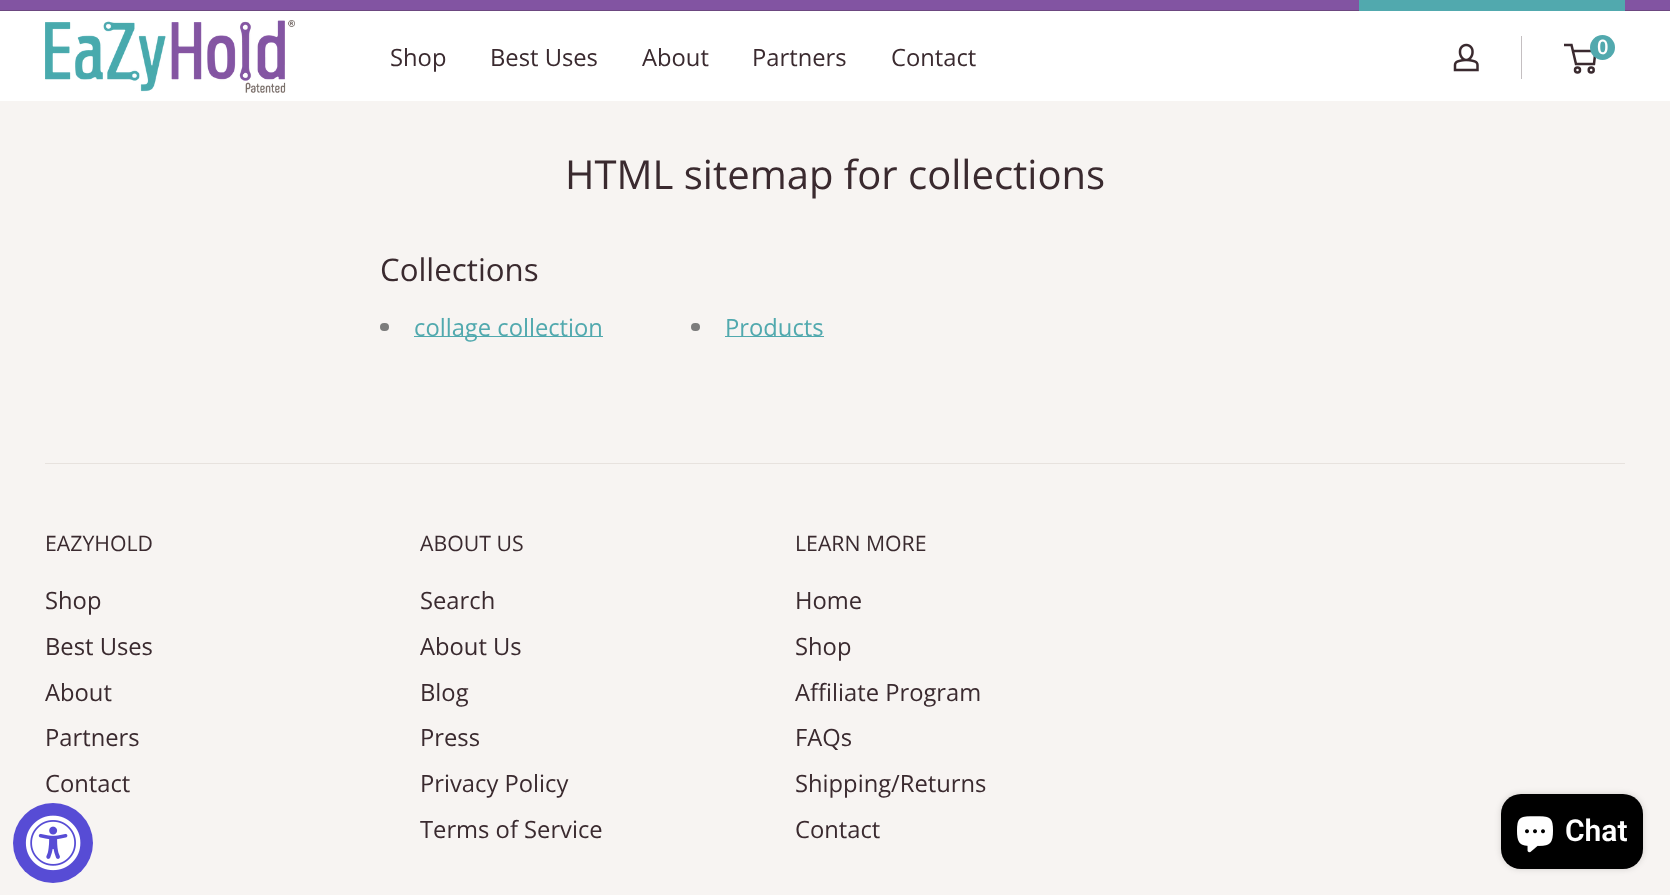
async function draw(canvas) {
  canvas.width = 1670;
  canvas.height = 895;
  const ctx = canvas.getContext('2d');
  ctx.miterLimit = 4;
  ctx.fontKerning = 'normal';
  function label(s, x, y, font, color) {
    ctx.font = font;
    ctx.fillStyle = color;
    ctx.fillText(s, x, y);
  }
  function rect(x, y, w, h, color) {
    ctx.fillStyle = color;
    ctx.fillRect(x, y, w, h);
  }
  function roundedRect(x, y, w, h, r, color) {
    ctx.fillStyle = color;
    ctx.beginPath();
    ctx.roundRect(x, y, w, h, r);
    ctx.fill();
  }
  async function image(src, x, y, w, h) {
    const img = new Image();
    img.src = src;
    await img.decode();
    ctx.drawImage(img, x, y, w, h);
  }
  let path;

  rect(0, 0, 1670, 895, '#f7f4f2');
  rect(0, 0, 1670, 10, '#8254a2');
  rect(0, 10, 1670, 1, '#6c4780');
  rect(1359, 0, 266, 11, '#51a9ae');
  rect(0, 11, 1670, 90, '#fff');
  await image('assets/img1.png', 45, 20, 250, 73);
  label('Shop', 390, 66, '23.75px Open Sans', '#3a2a2f');
  label('Best Uses', 490, 66, '23.75px Open Sans', '#3a2a2f');
  label('About', 642, 66, '23.75px Open Sans', '#3a2a2f');
  label('Partners', 752, 66, '23.75px Open Sans', '#3a2a2f');
  label('Contact', 891, 66, '23.75px Open Sans', '#3a2a2f');
  await image('assets/img2.png', 1453, 43, 26, 29);
  rect(1521, 36, 1, 43, '#c4bfc1');
  ctx.beginPath();
  ctx.arc(1577.5, 70, 2.5, 0, 2 * Math.PI);
  ctx.strokeStyle = '#3a2a2f';
  ctx.lineWidth = 2.5;
  ctx.stroke();
  ctx.beginPath();
  ctx.arc(1591.2, 70, 2.5, 0, 2 * Math.PI);
  ctx.stroke();
  path = new Path2D('M1573 51H1595.5L1594 64H1576L1571.5 45H1564');
  ctx.stroke(path);
  ctx.fillStyle = '#51a9ae';
  ctx.beginPath();
  ctx.arc(1602.5, 47.5, 12.5, 0, 2 * Math.PI);
  ctx.fill();
  label('0', 1597, 54, '600 20px Open Sans', '#fff');
  label('HTML sitemap for collections', 565, 189, '40px Open Sans', '#3a2a2f');
  label('Collections', 380, 281, '31.25px Open Sans', '#3a2a2f');
  roundedRect(380, 323, 9, 8, 4, '#7c7c7c');
  rect(414, 336, 189, 1, '#51a9ae');
  label('collage collection', 414, 336, '23.75px Open Sans', '#51a9ae');
  roundedRect(691, 323, 9, 8, 4, '#7c7c7c');
  rect(725, 336, 99, 1, '#51a9ae');
  label('Products', 725, 336, '23.75px Open Sans', '#51a9ae');
  rect(45, 463, 1580, 1, '#e7e2de');
  label('EAZYHOLD', 45, 551, '21.25px Open Sans', '#3a2a2f');
  label('Shop', 45, 609, '23.75px Open Sans', '#3a2a2f');
  label('Best Uses', 45, 655, '23.75px Open Sans', '#3a2a2f');
  label('About', 45, 701, '23.75px Open Sans', '#3a2a2f');
  label('Partners', 45, 746, '23.75px Open Sans', '#3a2a2f');
  label('Contact', 45, 792, '23.75px Open Sans', '#3a2a2f');
  label('ABOUT US', 420, 551, '21.25px Open Sans', '#3a2a2f');
  label('Search', 420, 609, '23.75px Open Sans', '#3a2a2f');
  label('About Us', 420, 655, '23.75px Open Sans', '#3a2a2f');
  label('Blog', 420, 701, '23.75px Open Sans', '#3a2a2f');
  label('Press', 420, 746, '23.75px Open Sans', '#3a2a2f');
  label('Privacy Policy', 420, 792, '23.75px Open Sans', '#3a2a2f');
  label('Terms of Service', 420, 838, '23.75px Open Sans', '#3a2a2f');
  label('LEARN MORE', 795, 551, '21.25px Open Sans', '#3a2a2f');
  label('Home', 795, 609, '23.75px Open Sans', '#3a2a2f');
  label('Shop', 795, 655, '23.75px Open Sans', '#3a2a2f');
  label('Affiliate Program', 795, 701, '23.75px Open Sans', '#3a2a2f');
  label('FAQs', 795, 746, '23.75px Open Sans', '#3a2a2f');
  label('Shipping/Returns', 795, 792, '23.75px Open Sans', '#3a2a2f');
  label('Contact', 795, 838, '23.75px Open Sans', '#3a2a2f');
  ctx.fillStyle = '#574cd5';
  ctx.beginPath();
  ctx.arc(53, 843, 40, 0, 2 * Math.PI);
  ctx.fill();
  await image('assets/img3.png', 25, 815, 56, 56);
  ctx.fillStyle = '#00000026';
  ctx.filter = 'blur(3px)';
  ctx.beginPath();
  ctx.roundRect(1501, 794, 142, 75, 20);
  ctx.fill();
  ctx.filter = 'none';
  roundedRect(1501, 794, 142, 75, 20, '#000');
  await image('assets/img4.png', 1517, 816, 36, 37);
  label('Chat', 1565, 841, '600 30px Roboto', '#fff');
}

draw(document.querySelector('canvas'));
